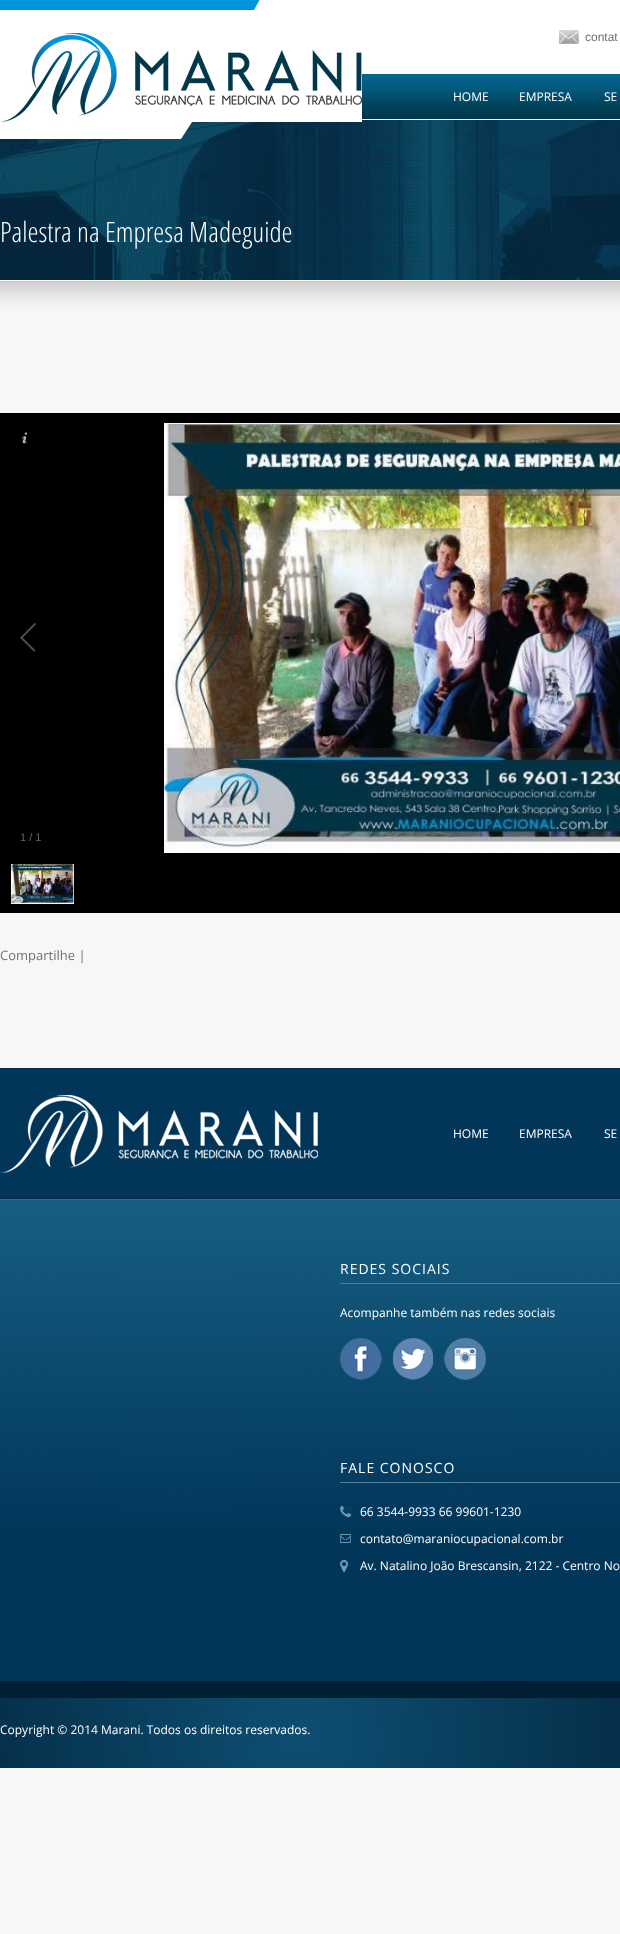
async function draw(canvas) {
  canvas.width = 620;
  canvas.height = 1934;
  const ctx = canvas.getContext('2d');
  ctx.miterLimit = 4;
  ctx.fontKerning = 'normal';
  function label(s, x, y, font, color) {
    ctx.font = font;
    ctx.fillStyle = color;
    ctx.fillText(s, x, y);
  }
  function rect(x, y, w, h, color) {
    ctx.fillStyle = color;
    ctx.fillRect(x, y, w, h);
  }
  async function image(src, x, y, w, h) {
    const img = new Image();
    img.src = src;
    await img.decode();
    ctx.drawImage(img, x, y, w, h);
  }

  rect(0, 0, 620, 1934, '#f7f7f6');
  await image('assets/img4.png', 0, 120, 620, 160);
  await image('assets/img1.png', 0, 0, 620, 139);
  await image('assets/img2.png', 0, 33, 362, 89);
  await image('assets/img3.png', 559, 30, 21, 14);
  label('contat', 585, 41, '12px Liberation Sans', '#707070');
  label('HOME', 453, 101, '12px Open Sans', '#fff');
  label('EMPRESA', 519, 101, '12px Open Sans', '#fff');
  label('SE', 604, 101, '12px Open Sans', '#fff');
  label('Palestra na Empresa Madeguide', 0, 242, '300 28px Open Sans Condensed', '#fff');
  await image('assets/img5.png', 0, 281, 620, 28);
  rect(0, 413, 620, 500, '#000');
  await image('assets/img6.png', 21, 432, 6, 12);
  await image('assets/img7.png', 20, 623, 16, 29);
  await image('assets/img8.png', 164, 423, 456, 430);
  label('1 / 1', 20, 841, '11px Liberation Sans', '#666');
  await image('assets/img9.png', 11, 864, 63, 40);
  label('Compartilhe |', 0, 960, '13px Open Sans', '#707070');
  await image('assets/img10.png', 0, 1068, 620, 700);
  await image('assets/img11.png', 0, 1095, 318, 78);
  label('HOME', 453, 1138, '12px Open Sans', '#fff');
  label('EMPRESA', 519, 1138, '12px Open Sans', '#fff');
  label('SE', 604, 1138, '12px Open Sans', '#fff');
  rect(340, 1283, 280, 1, '#517f97');
  ctx.letterSpacing = '1px';
  label('REDES SOCIAIS', 340, 1274, '14px Open Sans', '#fff');
  ctx.letterSpacing = '0px';
  label('Acompanhe também nas redes sociais', 340, 1317, '12px Open Sans', '#fff');
  await image('assets/img12.png', 340, 1338, 42, 42);
  await image('assets/img13.png', 393, 1338, 40, 42);
  await image('assets/img14.png', 444, 1338, 42, 42);
  rect(340, 1482, 280, 1, '#517f97');
  ctx.letterSpacing = '1px';
  label('FALE CONOSCO', 340, 1473, '14px Open Sans', '#fff');
  await image('assets/img15.png', 340, 1506, 12, 12);
  ctx.letterSpacing = '0px';
  label('66 3544-9933 66 99601-1230', 360, 1516, '12px Open Sans', '#fff');
  await image('assets/img16.png', 340, 1534, 11, 9);
  label('contato@maraniocupacional.com.br', 360, 1543, '12px Open Sans', '#fff');
  await image('assets/img17.png', 340, 1560, 9, 12);
  label('Av. Natalino João Brescansin, 2122 - Centro No', 360, 1570, '12px Open Sans', '#fff');
  label('Copyright © 2014 Marani. Todos os direitos reservados.', 0, 1734, '12px Open Sans', '#fff');
}

draw(document.querySelector('canvas'));
